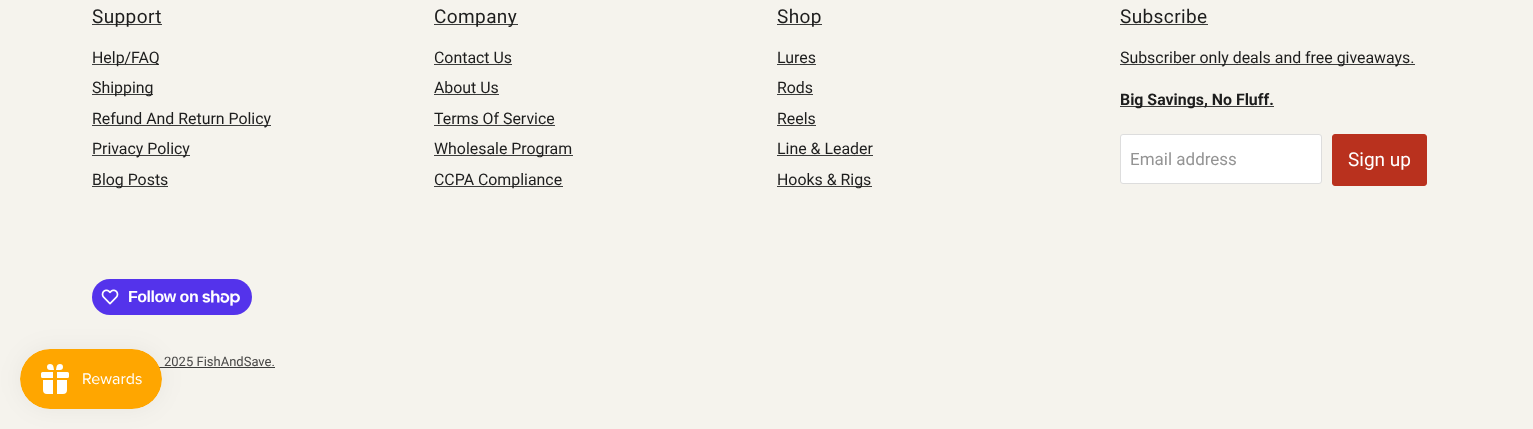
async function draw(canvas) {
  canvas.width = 1533;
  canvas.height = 429;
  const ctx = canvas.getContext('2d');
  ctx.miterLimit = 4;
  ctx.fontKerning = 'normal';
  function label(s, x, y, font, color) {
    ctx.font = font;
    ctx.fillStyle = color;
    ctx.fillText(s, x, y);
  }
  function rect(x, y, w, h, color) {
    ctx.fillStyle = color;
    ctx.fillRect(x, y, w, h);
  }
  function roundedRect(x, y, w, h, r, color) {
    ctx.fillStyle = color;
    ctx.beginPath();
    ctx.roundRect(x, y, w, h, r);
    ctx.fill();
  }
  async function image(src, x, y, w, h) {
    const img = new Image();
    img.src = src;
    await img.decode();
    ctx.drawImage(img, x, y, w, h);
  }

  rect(0, 0, 1533, 429, '#f5f3ed');
  rect(92, 24, 70, 1, '#3c3d3c');
  ctx.letterSpacing = '0.4px';
  label('Support', 92, 23, '19px Roboto', '#1d1d1d');
  rect(92, 64, 67, 1, '#3c3d3c');
  ctx.letterSpacing = '0px';
  label('Help/FAQ', 92, 63, '15.9px Roboto', '#1d1d1d');
  rect(92, 94, 61, 1, '#3c3d3c');
  label('Shipping', 92, 93, '15.9px Roboto', '#1d1d1d');
  rect(92, 125, 179, 1, '#3c3d3c');
  label('Refund And Return Policy', 92, 124, '15.9px Roboto', '#1d1d1d');
  rect(92, 155, 98, 1, '#3c3d3c');
  label('Privacy Policy', 92, 154, '15.9px Roboto', '#1d1d1d');
  rect(92, 186, 76, 1, '#3c3d3c');
  label('Blog Posts', 92, 185, '15.9px Roboto', '#1d1d1d');
  rect(434, 24, 84, 1, '#3c3d3c');
  ctx.letterSpacing = '0.4px';
  label('Company', 434, 23, '19px Roboto', '#1d1d1d');
  ctx.letterSpacing = '0px';
  label('Contact Us', 434, 63, '15.9px Roboto', '#1d1d1d');
  rect(434, 64, 78, 1, '#3c3d3c');
  label('About Us', 434, 93, '15.9px Roboto', '#1d1d1d');
  rect(434, 94, 65, 1, '#3c3d3c');
  label('Terms Of Service', 434, 124, '15.9px Roboto', '#1d1d1d');
  rect(434, 125, 121, 1, '#3c3d3c');
  rect(434, 155, 139, 1, '#3c3d3c');
  label('Wholesale Program', 434, 154, '15.9px Roboto', '#1d1d1d');
  rect(434, 186, 129, 1, '#3c3d3c');
  label('CCPA Compliance', 434, 185, '15.9px Roboto', '#1d1d1d');
  rect(777, 24, 45, 1, '#3c3d3c');
  ctx.letterSpacing = '0.4px';
  label('Shop', 777, 23, '19px Roboto', '#1d1d1d');
  ctx.letterSpacing = '0px';
  label('Lures', 777, 63, '15.9px Roboto', '#1d1d1d');
  rect(777, 64, 39, 1, '#3c3d3c');
  label('Rods', 777, 93, '15.9px Roboto', '#1d1d1d');
  rect(777, 94, 36, 1, '#3c3d3c');
  label('Reels', 777, 124, '15.9px Roboto', '#1d1d1d');
  rect(777, 125, 39, 1, '#3c3d3c');
  label('Line & Leader', 777, 154, '15.9px Roboto', '#1d1d1d');
  rect(777, 155, 96, 1, '#3c3d3c');
  rect(777, 186, 95, 1, '#3c3d3c');
  label('Hooks & Rigs', 777, 185, '15.9px Roboto', '#1d1d1d');
  ctx.letterSpacing = '0.4px';
  label('Subscribe', 1120, 23, '19px Roboto', '#1d1d1d');
  rect(1120, 24, 88, 1, '#3c3d3c');
  rect(1120, 64, 295, 1, '#3c3d3c');
  ctx.letterSpacing = '0px';
  label('Subscriber only deals and free giveaways.', 1120, 63, '15.9px Roboto', '#1d1d1d');
  rect(1120, 106, 154, 1, '#3c3d3c');
  label('Big Savings, No Fluff.', 1120, 105, 'bold 15.9px Roboto', '#1d1d1d');
  ctx.fillStyle = '#fff';
  ctx.beginPath();
  ctx.roundRect(1120.5, 134.5, 201, 49, 2.5);
  ctx.fill();
  ctx.strokeStyle = '#ddd';
  ctx.stroke();
  label('Email address', 1130, 165, '17px Roboto', '#949494');
  ctx.fillStyle = '#b9311e';
  ctx.beginPath();
  ctx.roundRect(1332.5, 134.5, 94, 51, 2.5);
  ctx.fill();
  ctx.strokeStyle = '#b9311e';
  ctx.stroke();
  label('Sign up', 1348, 166, '19px Roboto', '#fff');
  roundedRect(92, 279, 160, 36, 18, '#5433eb');
  await image('assets/img1.png', 101, 289, 18, 16);
  ctx.letterSpacing = '-0.5px';
  label('Follow on', 128, 302, 'bold 16px Liberation Sans', '#fff');
  await image('assets/img2.png', 202, 290, 38, 16);
  ctx.letterSpacing = '0px';
  label('2025 FishAndSave.', 164, 366, '13px Roboto', '#484746');
  rect(159, 367, 116, 1, '#3c3d3c');
  ctx.fillStyle = '#0000000d';
  ctx.filter = 'blur(12.5px)';
  ctx.beginPath();
  ctx.roundRect(20, 349, 142, 60, 30);
  ctx.fill();
  ctx.filter = 'none';
  await image('assets/img3.png', 20, 349, 142, 60);
}

draw(document.querySelector('canvas'));
